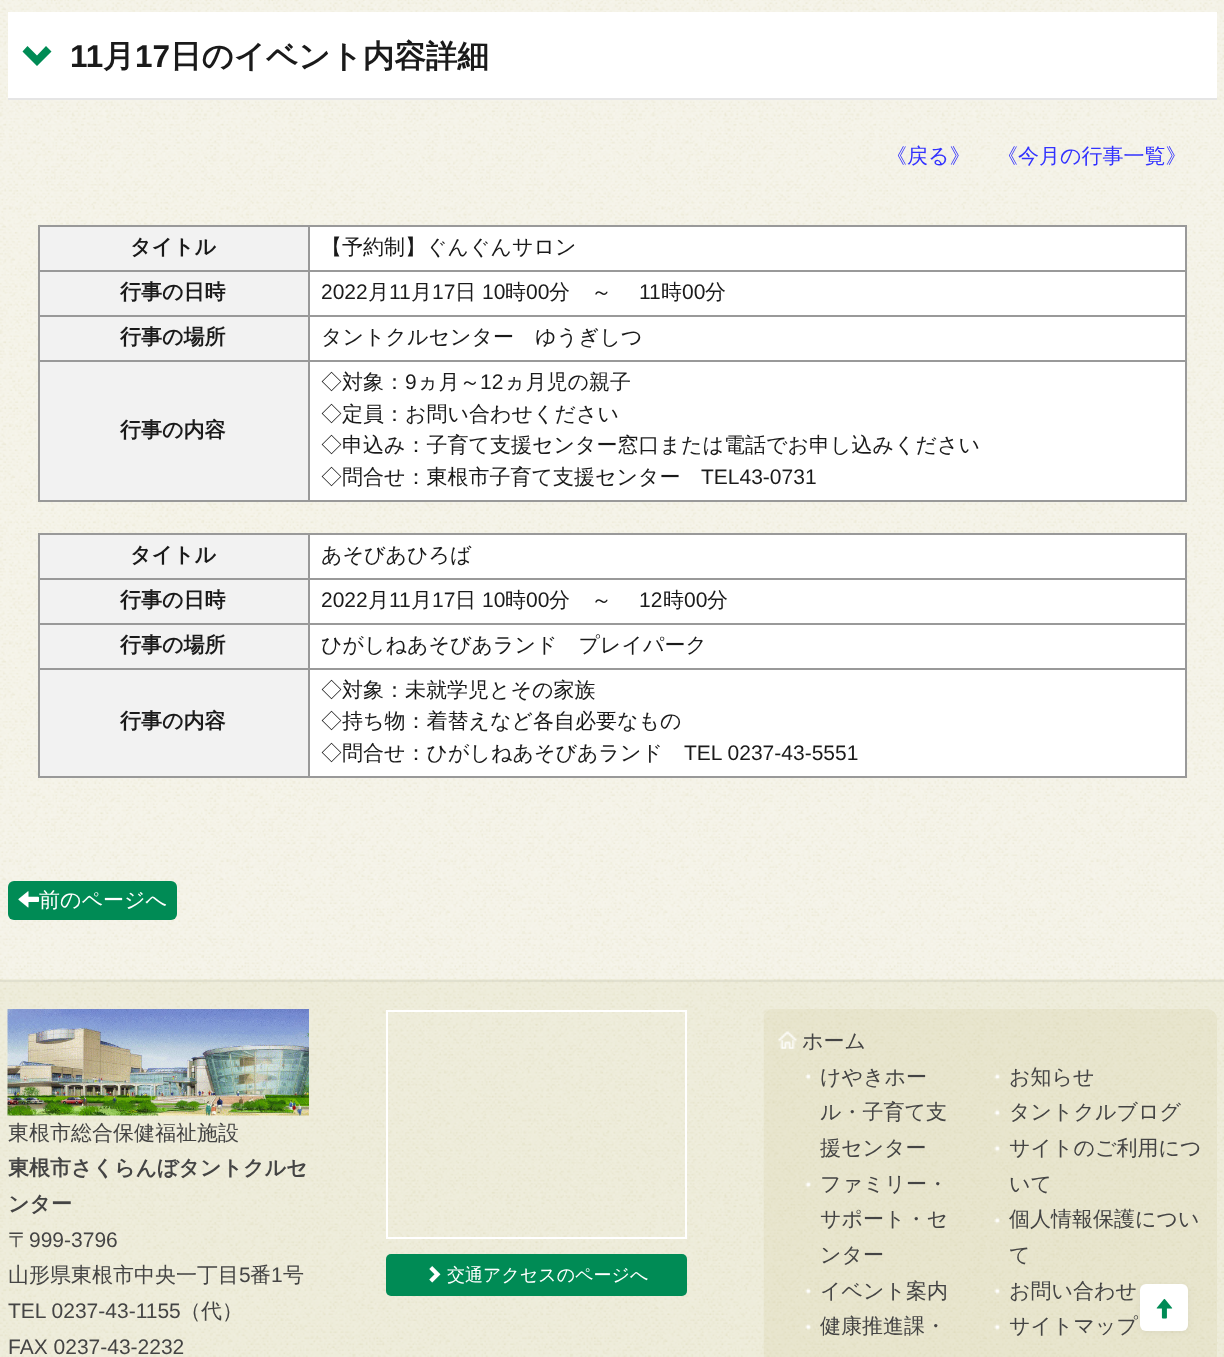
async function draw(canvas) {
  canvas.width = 1224;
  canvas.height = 1357;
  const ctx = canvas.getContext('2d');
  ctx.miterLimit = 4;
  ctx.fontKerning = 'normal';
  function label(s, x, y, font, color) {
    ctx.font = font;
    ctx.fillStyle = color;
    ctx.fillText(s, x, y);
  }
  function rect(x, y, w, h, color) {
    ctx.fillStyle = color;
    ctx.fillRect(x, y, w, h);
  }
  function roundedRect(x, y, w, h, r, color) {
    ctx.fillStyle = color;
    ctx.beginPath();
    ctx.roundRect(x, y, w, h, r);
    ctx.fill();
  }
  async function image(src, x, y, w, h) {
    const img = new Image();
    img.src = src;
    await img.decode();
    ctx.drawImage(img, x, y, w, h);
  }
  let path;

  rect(0, 0, 1224, 1357, '#fff');
  await image('assets/img1.png', 0, 0, 1224, 979);
  rect(8, 12, 1209, 86, '#fff');
  ctx.fillStyle = '#008b55';
  path = new Path2D('M51.5 51.5L37 66L22.5 51.5L27.5 46L37 55.5L46 46Z');
  ctx.fill(path);
  label('11', 70, 67, 'bold 31.5px Liberation Sans', '#1a1a1a');
  label('月', 103, 67, 'bold 31.5px WenQuanYi Zen Hei', '#1a1a1a');
  label('17', 135, 67, 'bold 31.5px Liberation Sans', '#1a1a1a');
  label('日のイベント内容詳細', 170, 67, 'bold 31.5px WenQuanYi Zen Hei', '#1a1a1a');
  rect(8, 98, 1209, 2, '#e5e5e5');
  label('《戻る》', 886, 163, '500 21px WenQuanYi Zen Hei', '#3232ff');
  label('《今月の行事一覧》', 997, 163, '500 21px WenQuanYi Zen Hei', '#3232ff');
  rect(310, 227, 875, 273, '#fff');
  rect(40, 227, 268, 43, '#f2f2f2');
  rect(308, 225, 879, 2, '#999');
  rect(308, 270, 879, 2, '#999');
  rect(308, 315, 879, 2, '#999');
  rect(308, 360, 879, 2, '#999');
  rect(1185, 360, 2, 141, '#999');
  rect(308, 500, 879, 2, '#999');
  rect(308, 360, 2, 141, '#999');
  rect(38, 360, 271, 2, '#999');
  rect(308, 315, 2, 47, '#999');
  rect(38, 315, 271, 2, '#999');
  rect(308, 270, 2, 47, '#999');
  rect(38, 270, 271, 2, '#999');
  rect(308, 225, 2, 47, '#999');
  rect(38, 225, 271, 2, '#999');
  rect(38, 500, 271, 2, '#999');
  rect(38, 360, 2, 141, '#999');
  rect(38, 315, 2, 47, '#999');
  rect(38, 270, 2, 47, '#999');
  rect(38, 225, 2, 47, '#999');
  label('タイトル', 130, 254, 'bold 21px WenQuanYi Zen Hei', '#1a1a1a');
  rect(1185, 315, 2, 47, '#999');
  rect(1185, 270, 2, 47, '#999');
  rect(1185, 225, 2, 47, '#999');
  label('【予約制】ぐんぐんサロン', 321, 254, '500 21px WenQuanYi Zen Hei', '#1a1a1a');
  rect(40, 272, 268, 43, '#f2f2f2');
  label('行事の日時', 120, 299, 'bold 21px WenQuanYi Zen Hei', '#1a1a1a');
  label('2022', 321, 299, '21px Liberation Sans', '#1a1a1a');
  label('月', 368, 299, '500 21px WenQuanYi Zen Hei', '#1a1a1a');
  label('11', 389, 299, '21px Liberation Sans', '#1a1a1a');
  label('月', 411, 299, '500 21px WenQuanYi Zen Hei', '#1a1a1a');
  label('17', 432, 299, '21px Liberation Sans', '#1a1a1a');
  label('日', 455, 299, '500 21px WenQuanYi Zen Hei', '#1a1a1a');
  label('10', 482, 299, '21px Liberation Sans', '#1a1a1a');
  label('時', 505, 299, '500 21px WenQuanYi Zen Hei', '#1a1a1a');
  label('00', 526, 299, '21px Liberation Sans', '#1a1a1a');
  label('分　～', 549, 299, '500 21px WenQuanYi Zen Hei', '#1a1a1a');
  label('11', 639, 299, '21px Liberation Sans', '#1a1a1a');
  label('時', 661, 299, '500 21px WenQuanYi Zen Hei', '#1a1a1a');
  label('00', 682, 299, '21px Liberation Sans', '#1a1a1a');
  label('分', 705, 299, '500 21px WenQuanYi Zen Hei', '#1a1a1a');
  rect(40, 317, 268, 43, '#f2f2f2');
  label('行事の場所', 120, 344, 'bold 21px WenQuanYi Zen Hei', '#1a1a1a');
  label('タントクルセンター　ゆうぎしつ', 321, 344, '500 21px WenQuanYi Zen Hei', '#1a1a1a');
  rect(40, 362, 268, 138, '#f2f2f2');
  label('行事の内容', 120, 437, 'bold 21px WenQuanYi Zen Hei', '#1a1a1a');
  label('◇対象：', 321, 389, '500 21px WenQuanYi Zen Hei', '#1a1a1a');
  label('9', 405, 389, '21px Liberation Sans', '#1a1a1a');
  label('ヵ月～', 417, 389, '500 21px WenQuanYi Zen Hei', '#1a1a1a');
  label('12', 480, 389, '21px Liberation Sans', '#1a1a1a');
  label('ヵ月児の親子', 504, 389, '500 21px WenQuanYi Zen Hei', '#1a1a1a');
  label('◇定員：お問い合わせください', 321, 421, '500 21px WenQuanYi Zen Hei', '#1a1a1a');
  label('◇申込み：子育て支援センター窓口または電話でお申し込みください', 321, 452, '500 21px WenQuanYi Zen Hei', '#1a1a1a');
  label('◇問合せ：東根市子育て支援センター', 321, 484, '500 21px WenQuanYi Zen Hei', '#1a1a1a');
  label('TEL43-0731', 701, 484, '21px Liberation Sans', '#1a1a1a');
  rect(310, 535, 875, 241, '#fff');
  rect(40, 535, 268, 43, '#f2f2f2');
  rect(308, 533, 879, 2, '#999');
  rect(308, 578, 879, 2, '#999');
  rect(308, 623, 879, 2, '#999');
  rect(308, 668, 879, 2, '#999');
  rect(1185, 668, 2, 109, '#999');
  rect(308, 776, 879, 2, '#999');
  rect(308, 668, 2, 109, '#999');
  rect(38, 668, 271, 2, '#999');
  rect(308, 623, 2, 46, '#999');
  rect(38, 623, 271, 2, '#999');
  rect(308, 578, 2, 46, '#999');
  rect(38, 578, 271, 2, '#999');
  rect(308, 533, 2, 46, '#999');
  rect(38, 533, 271, 2, '#999');
  rect(38, 776, 271, 2, '#999');
  rect(38, 668, 2, 109, '#999');
  rect(38, 623, 2, 46, '#999');
  rect(38, 578, 2, 46, '#999');
  rect(38, 533, 2, 46, '#999');
  label('タイトル', 130, 562, 'bold 21px WenQuanYi Zen Hei', '#1a1a1a');
  rect(1185, 623, 2, 46, '#999');
  rect(1185, 578, 2, 46, '#999');
  rect(1185, 533, 2, 46, '#999');
  label('あそびあひろば', 321, 562, '500 21px WenQuanYi Zen Hei', '#1a1a1a');
  rect(40, 580, 268, 43, '#f2f2f2');
  label('行事の日時', 120, 607, 'bold 21px WenQuanYi Zen Hei', '#1a1a1a');
  label('2022', 321, 607, '21px Liberation Sans', '#1a1a1a');
  label('月', 368, 607, '500 21px WenQuanYi Zen Hei', '#1a1a1a');
  label('11', 389, 607, '21px Liberation Sans', '#1a1a1a');
  label('月', 411, 607, '500 21px WenQuanYi Zen Hei', '#1a1a1a');
  label('17', 432, 607, '21px Liberation Sans', '#1a1a1a');
  label('日', 455, 607, '500 21px WenQuanYi Zen Hei', '#1a1a1a');
  label('10', 482, 607, '21px Liberation Sans', '#1a1a1a');
  label('時', 505, 607, '500 21px WenQuanYi Zen Hei', '#1a1a1a');
  label('00', 526, 607, '21px Liberation Sans', '#1a1a1a');
  label('分　～', 549, 607, '500 21px WenQuanYi Zen Hei', '#1a1a1a');
  label('12', 639, 607, '21px Liberation Sans', '#1a1a1a');
  label('時', 663, 607, '500 21px WenQuanYi Zen Hei', '#1a1a1a');
  label('00', 684, 607, '21px Liberation Sans', '#1a1a1a');
  label('分', 707, 607, '500 21px WenQuanYi Zen Hei', '#1a1a1a');
  rect(40, 625, 268, 43, '#f2f2f2');
  label('行事の場所', 120, 652, 'bold 21px WenQuanYi Zen Hei', '#1a1a1a');
  label('ひがしねあそびあランド　プレイパーク', 321, 652, '500 21px WenQuanYi Zen Hei', '#1a1a1a');
  rect(40, 670, 268, 106, '#f2f2f2');
  label('行事の内容', 120, 728, 'bold 21px WenQuanYi Zen Hei', '#1a1a1a');
  label('◇対象：未就学児とその家族', 321, 697, '500 21px WenQuanYi Zen Hei', '#1a1a1a');
  label('◇持ち物：着替えなど各自必要なもの', 321, 728, '500 21px WenQuanYi Zen Hei', '#1a1a1a');
  label('◇問合せ：ひがしねあそびあランド', 321, 760, '500 21px WenQuanYi Zen Hei', '#1a1a1a');
  label('TEL 0237-43-5551', 684, 760, '21px Liberation Sans', '#1a1a1a');
  roundedRect(8, 881, 169, 39, 6, '#008b55');
  await image('assets/img2.png', 18, 891, 21, 17);
  label('前のページへ', 39, 907, '500 21px WenQuanYi Zen Hei', '#fff');
  await image('assets/img3.png', 0, 979, 1224, 378);
  rect(0, 980, 1224, 2, '#0000000d');
  await image('assets/img4.png', 7, 1009, 302, 107);
  label('東根市総合保健福祉施設', 8, 1140, '500 21px WenQuanYi Zen Hei', '#444');
  label('東根市さくらんぼタントクルセ', 8, 1175, 'bold 21px WenQuanYi Zen Hei', '#444');
  label('ンター', 8, 1211, 'bold 21px WenQuanYi Zen Hei', '#444');
  label('〒', 8, 1247, '500 21px WenQuanYi Zen Hei', '#444');
  label('999-3796', 29, 1247, '21px Liberation Sans', '#444');
  label('山形県東根市中央一丁目', 8, 1282, '500 21px WenQuanYi Zen Hei', '#444');
  label('5', 239, 1282, '21px Liberation Sans', '#444');
  label('番', 250, 1282, '500 21px WenQuanYi Zen Hei', '#444');
  label('1', 271, 1282, '21px Liberation Sans', '#444');
  label('号', 283, 1282, '500 21px WenQuanYi Zen Hei', '#444');
  label('TEL 0237-43-1155', 8, 1318, '21px Liberation Sans', '#444');
  label('（代）', 180, 1318, '500 21px WenQuanYi Zen Hei', '#444');
  label('FAX 0237-43-2232', 8, 1354, '21px Liberation Sans', '#444');
  ctx.strokeStyle = '#fff';
  ctx.lineWidth = 2;
  ctx.strokeRect(387, 1011, 299, 227);
  roundedRect(386, 1254, 301, 42, 5, '#008b55');
  await image('assets/img5.png', 429, 1266, 12, 17);
  label('交通アクセスのページへ', 447, 1281, '500 18px WenQuanYi Zen Hei', '#fff');
  roundedRect(764, 1010, 453, 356, 9, '#e7e4cb');
  await image('assets/img6.png', 763, 1009, 453, 348);
  await image('assets/img7.png', 778, 1031, 19, 18);
  label('ホーム', 802, 1048, '500 21px WenQuanYi Zen Hei', '#444');
  await image('assets/img8.png', 805, 1073, 6, 7);
  label('けやきホー', 820, 1084, '500 21px WenQuanYi Zen Hei', '#444');
  label('ル・子育て支', 820, 1119, '500 21px WenQuanYi Zen Hei', '#444');
  label('援センター', 820, 1155, '500 21px WenQuanYi Zen Hei', '#444');
  await image('assets/img9.png', 805, 1181, 6, 7);
  label('ファミリー・', 820, 1191, '500 21px WenQuanYi Zen Hei', '#444');
  label('サポート・セ', 820, 1226, '500 21px WenQuanYi Zen Hei', '#444');
  label('ンター', 820, 1262, '500 21px WenQuanYi Zen Hei', '#444');
  await image('assets/img10.png', 805, 1288, 6, 7);
  label('イベント案内', 820, 1298, '500 21px WenQuanYi Zen Hei', '#444');
  await image('assets/img11.png', 805, 1324, 6, 6);
  label('健康推進課・', 820, 1333, '500 21px WenQuanYi Zen Hei', '#444');
  await image('assets/img12.png', 994, 1073, 6, 7);
  label('お知らせ', 1009, 1084, '500 21px WenQuanYi Zen Hei', '#444');
  await image('assets/img13.png', 994, 1109, 6, 7);
  label('タントクルブログ', 1009, 1119, '500 21px WenQuanYi Zen Hei', '#444');
  await image('assets/img14.png', 994, 1145, 6, 7);
  label('サイトのご利用につ', 1009, 1155, '500 21px WenQuanYi Zen Hei', '#444');
  label('いて', 1009, 1191, '500 21px WenQuanYi Zen Hei', '#444');
  await image('assets/img15.png', 994, 1217, 6, 7);
  label('個人情報保護につい', 1009, 1226, '500 21px WenQuanYi Zen Hei', '#444');
  label('て', 1009, 1262, '500 21px WenQuanYi Zen Hei', '#444');
  await image('assets/img16.png', 994, 1288, 6, 7);
  label('お問い合わせ', 1009, 1298, '500 21px WenQuanYi Zen Hei', '#444');
  await image('assets/img17.png', 994, 1324, 6, 7);
  label('サイトマップ', 1009, 1333, '500 21px WenQuanYi Zen Hei', '#444');
  ctx.fillStyle = '#0000000d';
  ctx.filter = 'blur(3px)';
  ctx.beginPath();
  ctx.roundRect(1140, 1286, 48, 46, 6);
  ctx.fill();
  ctx.filter = 'none';
  roundedRect(1140, 1284, 48, 47, 6, '#fff');
  await image('assets/img18.png', 1156, 1298, 17, 21);
}

draw(document.querySelector('canvas'));
